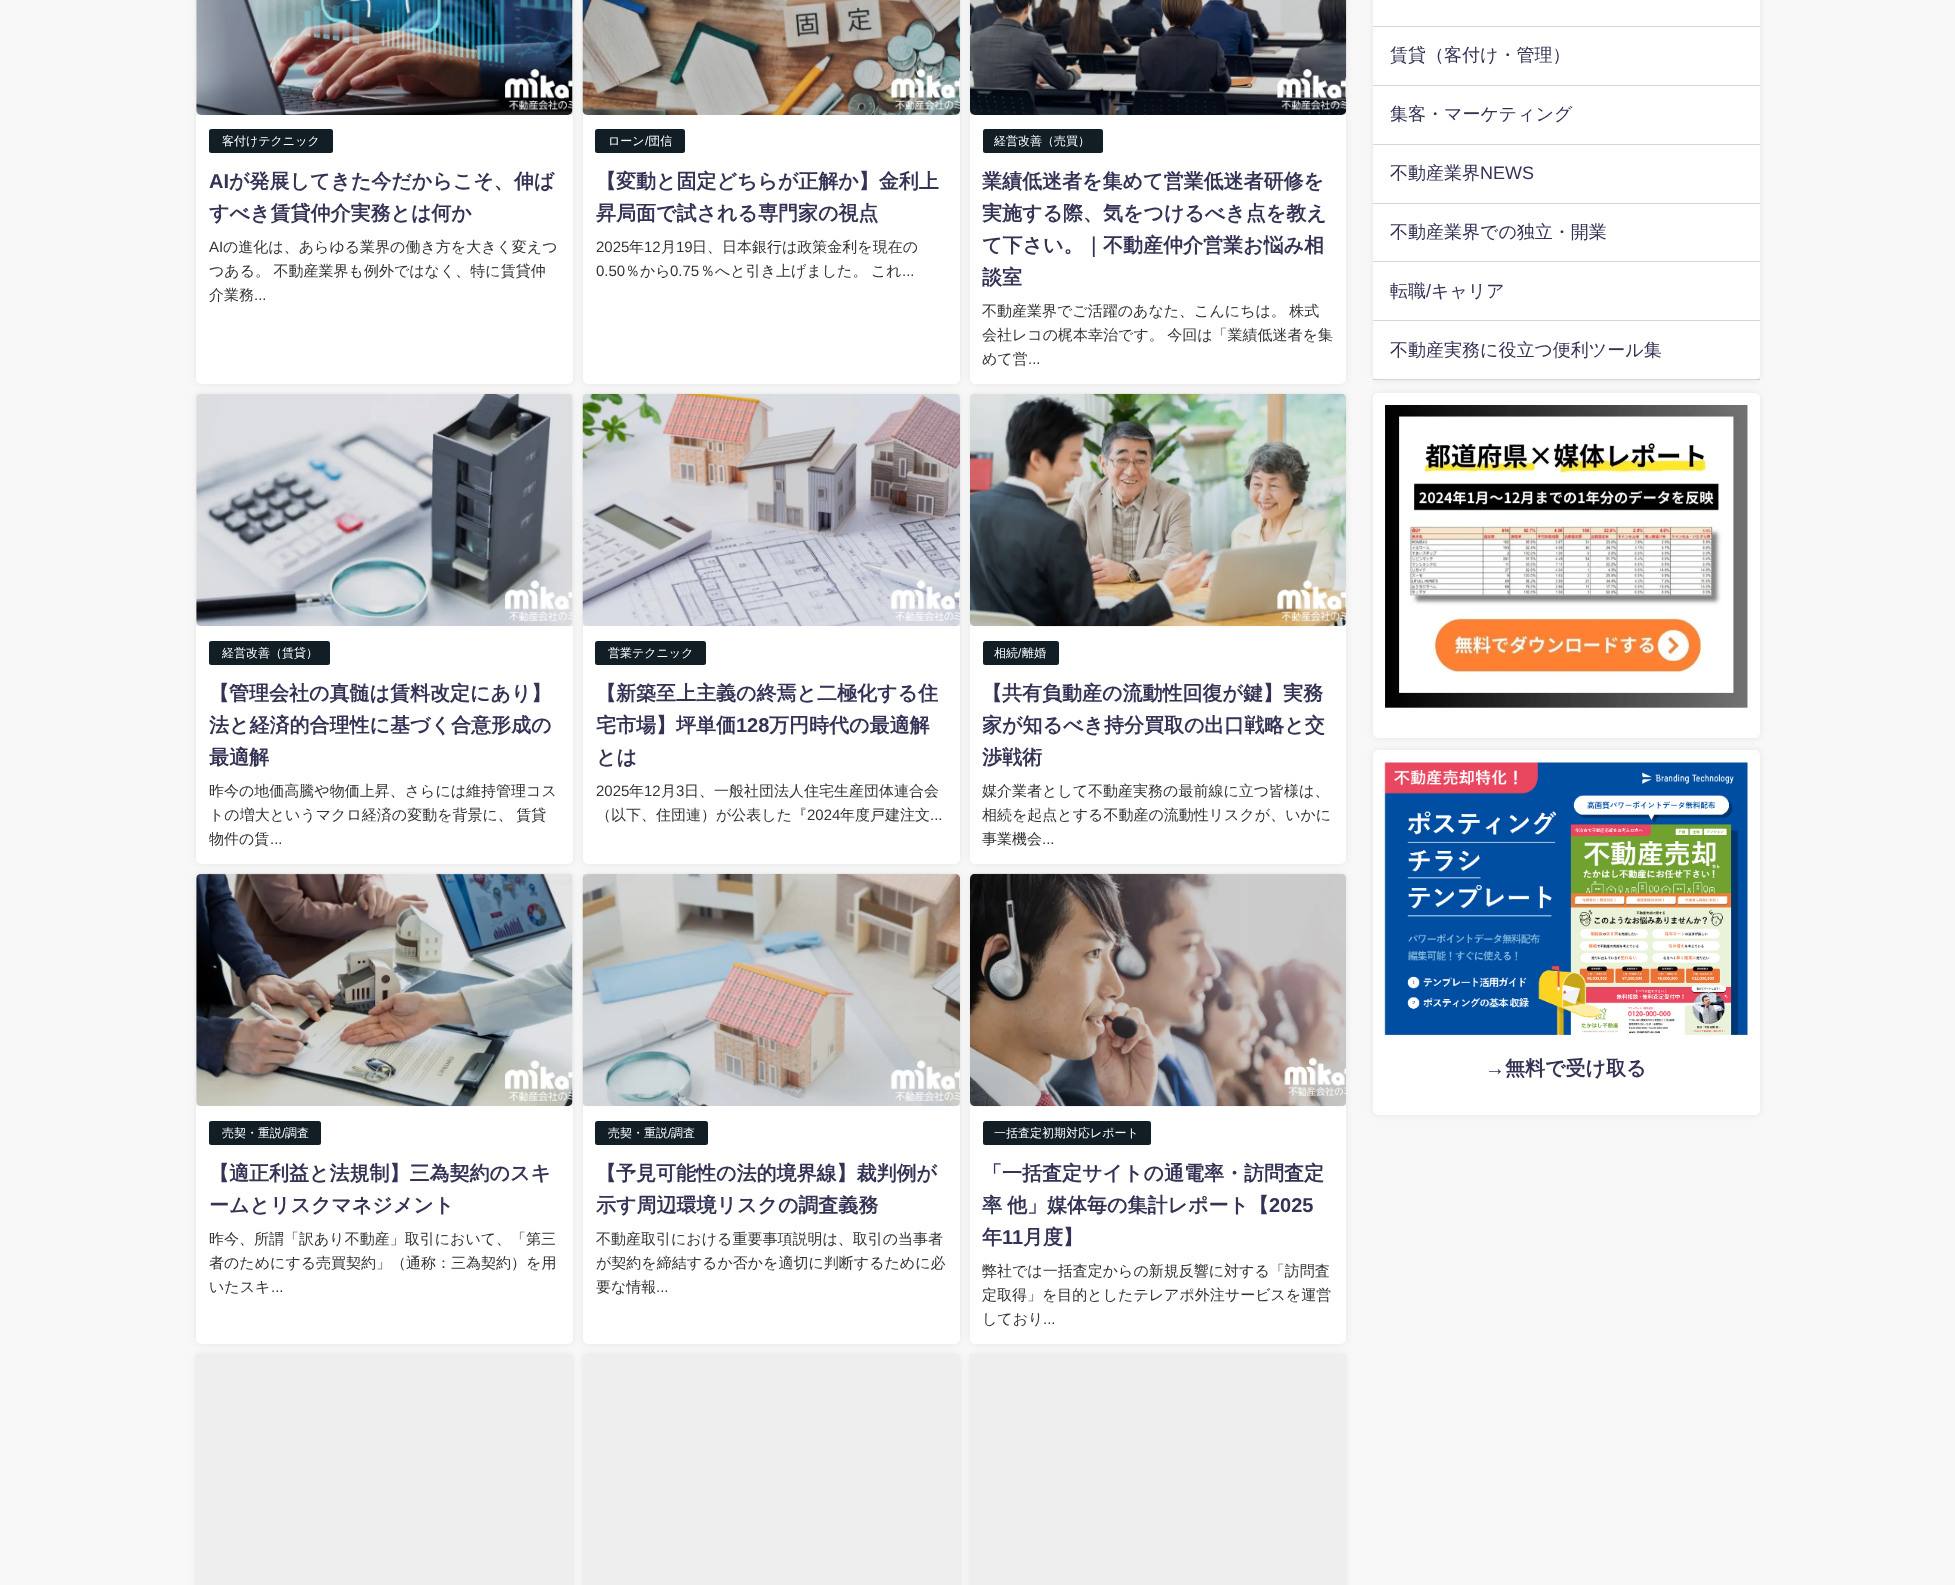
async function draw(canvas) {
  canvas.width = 1955;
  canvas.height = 1585;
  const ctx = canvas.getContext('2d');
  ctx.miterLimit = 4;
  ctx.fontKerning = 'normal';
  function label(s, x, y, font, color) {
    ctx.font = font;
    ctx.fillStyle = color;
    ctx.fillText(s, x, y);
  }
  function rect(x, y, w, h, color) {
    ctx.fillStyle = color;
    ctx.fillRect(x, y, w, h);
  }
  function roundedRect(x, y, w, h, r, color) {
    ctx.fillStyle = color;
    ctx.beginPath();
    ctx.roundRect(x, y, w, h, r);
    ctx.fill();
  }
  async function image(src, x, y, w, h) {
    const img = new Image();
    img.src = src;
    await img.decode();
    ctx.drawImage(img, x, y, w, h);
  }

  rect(0, 0, 1955, 1585, '#f8f8f8');
  ctx.fillStyle = '#96969633';
  ctx.filter = 'blur(3px)';
  ctx.beginPath();
  ctx.roundRect(196, -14, 377, 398, 5);
  ctx.fill();
  ctx.filter = 'none';
  roundedRect(196, -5, 377, 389, 5, '#fff');
  rect(196, 0, 377, 115, '#eee');
  await image('assets/img1.png', 196, 0, 377, 115);
  roundedRect(209, 129, 124, 24, 2.5, '#111e26');
  label('客付けテクニック', 222, 145, '500 12px WenQuanYi Zen Hei', '#fff');
  label('AI', 209, 188, 'bold 20px Liberation Sans', '#335');
  label('が発展してきた今だからこそ、伸ば', 229, 188, 'bold 20px WenQuanYi Zen Hei', '#335');
  label('すべき賃貸仲介実務とは何か', 209, 220, 'bold 20px WenQuanYi Zen Hei', '#335');
  label('AI', 209, 252, '15px Liberation Sans', '#333');
  label('の進化は、あらゆる業界の働き方を大きく変えつ', 223, 252, '500 15px WenQuanYi Zen Hei', '#333');
  ctx.wordSpacing = '-1px';
  label('つある。 不動産業界も例外ではなく、特に賃貸仲', 209, 276, '500 15px WenQuanYi Zen Hei', '#333');
  ctx.wordSpacing = '0px';
  label('介業務', 209, 300, '500 15px WenQuanYi Zen Hei', '#333');
  label('...', 254, 300, '15px Liberation Sans', '#333');
  ctx.fillStyle = '#96969633';
  ctx.filter = 'blur(3px)';
  ctx.beginPath();
  ctx.roundRect(583, -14, 377, 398, 5);
  ctx.fill();
  ctx.filter = 'none';
  roundedRect(583, -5, 377, 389, 5, '#fff');
  rect(583, 110, 377, 5, '#eee');
  await image('assets/img2.png', 582, 0, 378, 115);
  roundedRect(595, 129, 90, 24, 2.5, '#111e26');
  label('ローン 団信', 608, 145, '500 12px WenQuanYi Zen Hei', '#fff');
  label('/', 645, 145, '12px Liberation Sans', '#fff');
  label('【変動と固定どちらが正解か】金利上', 596, 188, 'bold 20px WenQuanYi Zen Hei', '#335');
  label('昇局面で試される専門家の視点', 596, 220, 'bold 20px WenQuanYi Zen Hei', '#335');
  label('2025', 596, 252, '15px Liberation Sans', '#333');
  label('年', 629, 252, '500 15px WenQuanYi Zen Hei', '#333');
  label('12', 644, 252, '15px Liberation Sans', '#333');
  label('月', 661, 252, '500 15px WenQuanYi Zen Hei', '#333');
  label('19', 676, 252, '15px Liberation Sans', '#333');
  label('日、日本銀行は政策金利を現在の', 692, 252, '500 15px WenQuanYi Zen Hei', '#333');
  label('0.50', 596, 276, '15px Liberation Sans', '#333');
  label('％から', 625, 276, '500 15px WenQuanYi Zen Hei', '#333');
  label('0.75', 670, 276, '15px Liberation Sans', '#333');
  ctx.wordSpacing = '-1px';
  label('％へと引き上げました。 これ', 700, 276, '500 15px WenQuanYi Zen Hei', '#333');
  ctx.wordSpacing = '0px';
  label('...', 902, 276, '15px Liberation Sans', '#333');
  ctx.fillStyle = '#96969633';
  ctx.filter = 'blur(3px)';
  ctx.beginPath();
  ctx.roundRect(970, -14, 376, 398, 5);
  ctx.fill();
  ctx.filter = 'none';
  roundedRect(970, -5, 376, 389, 5, '#fff');
  rect(970, 110, 376, 5, '#eee');
  await image('assets/img3.png', 970, 0, 377, 115);
  roundedRect(983, 129, 120, 24, 2.5, '#111e26');
  label('経営改善（売買）', 994, 145, '500 12px WenQuanYi Zen Hei', '#fff');
  label('業績低迷者を集めて営業低迷者研修を', 982, 188, 'bold 20px WenQuanYi Zen Hei', '#335');
  label('実施する際、気をつけるべき点を教え', 982, 220, 'bold 20px WenQuanYi Zen Hei', '#335');
  label('て下さい。｜不動産仲介営業お悩み相', 982, 252, 'bold 20px WenQuanYi Zen Hei', '#335');
  label('談室', 982, 284, 'bold 20px WenQuanYi Zen Hei', '#335');
  ctx.wordSpacing = '-1px';
  label('不動産業界でご活躍のあなた、こんにちは。 株式', 982, 316, '500 15px WenQuanYi Zen Hei', '#333');
  label('会社レコの梶本幸治です。 今回は「業績低迷者を集', 982, 340, '500 15px WenQuanYi Zen Hei', '#333');
  ctx.wordSpacing = '0px';
  label('めて営', 982, 364, '500 15px WenQuanYi Zen Hei', '#333');
  label('...', 1028, 364, '15px Liberation Sans', '#333');
  ctx.fillStyle = '#96969633';
  ctx.filter = 'blur(3px)';
  ctx.beginPath();
  ctx.roundRect(196, 394, 377, 470, 5);
  ctx.fill();
  ctx.filter = 'none';
  roundedRect(196, 394, 377, 470, 5, '#fff');
  rect(196, 394, 377, 232, '#eee');
  await image('assets/img4.png', 196, 393, 377, 234);
  roundedRect(209, 641, 121, 24, 2.5, '#111e26');
  label('経営改善（賃貸）', 222, 657, '500 12px WenQuanYi Zen Hei', '#fff');
  label('【管理会社の真髄は賃料改定にあり】', 209, 700, 'bold 20px WenQuanYi Zen Hei', '#335');
  label('法と経済的合理性に基づく合意形成の', 209, 732, 'bold 20px WenQuanYi Zen Hei', '#335');
  label('最適解', 209, 764, 'bold 20px WenQuanYi Zen Hei', '#335');
  label('昨今の地価高騰や物価上昇、さらには維持管理コス', 209, 796, '500 15px WenQuanYi Zen Hei', '#333');
  ctx.wordSpacing = '-1px';
  label('トの増大というマクロ経済の変動を背景に、 賃貸', 209, 820, '500 15px WenQuanYi Zen Hei', '#333');
  ctx.wordSpacing = '0px';
  label('物件の賃', 209, 844, '500 15px WenQuanYi Zen Hei', '#333');
  label('...', 270, 844, '15px Liberation Sans', '#333');
  ctx.fillStyle = '#96969633';
  ctx.filter = 'blur(3px)';
  ctx.beginPath();
  ctx.roundRect(583, 394, 377, 470, 5);
  ctx.fill();
  ctx.filter = 'none';
  roundedRect(583, 394, 377, 470, 5, '#fff');
  rect(583, 394, 377, 232, '#eee');
  await image('assets/img5.png', 582, 393, 378, 234);
  roundedRect(595, 641, 111, 24, 2.5, '#111e26');
  label('営業テクニック', 608, 657, '500 12px WenQuanYi Zen Hei', '#fff');
  label('【新築至上主義の終焉と二極化する住', 596, 700, 'bold 20px WenQuanYi Zen Hei', '#335');
  label('宅市場】坪単価', 596, 732, 'bold 20px WenQuanYi Zen Hei', '#335');
  label('128', 736, 732, 'bold 20px Liberation Sans', '#335');
  label('万円時代の最適解', 769, 732, 'bold 20px WenQuanYi Zen Hei', '#335');
  label('とは', 596, 764, 'bold 20px WenQuanYi Zen Hei', '#335');
  label('2025', 596, 796, '15px Liberation Sans', '#333');
  label('年', 629, 796, '500 15px WenQuanYi Zen Hei', '#333');
  label('12', 644, 796, '15px Liberation Sans', '#333');
  label('月', 661, 796, '500 15px WenQuanYi Zen Hei', '#333');
  label('3', 676, 796, '15px Liberation Sans', '#333');
  label('日、一般社団法人住宅生産団体連合会', 684, 796, '500 15px WenQuanYi Zen Hei', '#333');
  label('（以下、住団連）が公表した『', 596, 820, '500 15px WenQuanYi Zen Hei', '#333');
  label('2024', 807, 820, '15px Liberation Sans', '#333');
  label('年度戸建注文', 840, 820, '500 15px WenQuanYi Zen Hei', '#333');
  label('...', 930, 820, '15px Liberation Sans', '#333');
  ctx.fillStyle = '#96969633';
  ctx.filter = 'blur(3px)';
  ctx.beginPath();
  ctx.roundRect(970, 394, 376, 470, 5);
  ctx.fill();
  ctx.filter = 'none';
  roundedRect(970, 394, 376, 470, 5, '#fff');
  rect(970, 394, 376, 232, '#eee');
  await image('assets/img6.png', 970, 393, 377, 234);
  roundedRect(983, 641, 76, 24, 2.5, '#111e26');
  label('相続', 994, 657, '500 12px WenQuanYi Zen Hei', '#fff');
  label('/', 1018, 657, '12px Liberation Sans', '#fff');
  label('離婚', 1022, 657, '500 12px WenQuanYi Zen Hei', '#fff');
  label('【共有負動産の流動性回復が鍵】実務', 982, 700, 'bold 20px WenQuanYi Zen Hei', '#335');
  label('家が知るべき持分買取の出口戦略と交', 982, 732, 'bold 20px WenQuanYi Zen Hei', '#335');
  label('渉戦術', 982, 764, 'bold 20px WenQuanYi Zen Hei', '#335');
  label('媒介業者として不動産実務の最前線に立つ皆様は、', 982, 796, '500 15px WenQuanYi Zen Hei', '#333');
  label('相続を起点とする不動産の流動性リスクが、いかに', 982, 820, '500 15px WenQuanYi Zen Hei', '#333');
  label('事業機会', 982, 844, '500 15px WenQuanYi Zen Hei', '#333');
  label('...', 1042, 844, '15px Liberation Sans', '#333');
  ctx.fillStyle = '#96969633';
  ctx.filter = 'blur(3px)';
  ctx.beginPath();
  ctx.roundRect(196, 874, 377, 470, 5);
  ctx.fill();
  ctx.filter = 'none';
  roundedRect(196, 874, 377, 470, 5, '#fff');
  rect(196, 874, 377, 232, '#eee');
  await image('assets/img7.png', 196, 873, 377, 234);
  roundedRect(209, 1121, 112, 24, 2.5, '#111e26');
  label('売契・重説', 222, 1137, '500 12px WenQuanYi Zen Hei', '#fff');
  label('/', 282, 1137, '12px Liberation Sans', '#fff');
  label('調査', 285, 1137, '500 12px WenQuanYi Zen Hei', '#fff');
  label('【適正利益と法規制】三為契約のスキ', 209, 1180, 'bold 20px WenQuanYi Zen Hei', '#335');
  label('ームとリスクマネジメント', 209, 1212, 'bold 20px WenQuanYi Zen Hei', '#335');
  label('昨今、所謂「訳あり不動産」取引において、「第三', 209, 1244, '500 15px WenQuanYi Zen Hei', '#333');
  label('者のためにする売買契約」（通称：三為契約）を用', 209, 1268, '500 15px WenQuanYi Zen Hei', '#333');
  label('いたスキ', 209, 1292, '500 15px WenQuanYi Zen Hei', '#333');
  label('...', 271, 1292, '15px Liberation Sans', '#333');
  ctx.fillStyle = '#96969633';
  ctx.filter = 'blur(3px)';
  ctx.beginPath();
  ctx.roundRect(583, 874, 377, 470, 5);
  ctx.fill();
  ctx.filter = 'none';
  roundedRect(583, 874, 377, 470, 5, '#fff');
  rect(583, 874, 377, 232, '#eee');
  await image('assets/img8.png', 582, 873, 378, 234);
  roundedRect(595, 1121, 113, 24, 2.5, '#111e26');
  label('売契・重説', 608, 1137, '500 12px WenQuanYi Zen Hei', '#fff');
  label('/', 668, 1137, '12px Liberation Sans', '#fff');
  label('調査', 671, 1137, '500 12px WenQuanYi Zen Hei', '#fff');
  label('【予見可能性の法的境界線】裁判例が', 596, 1180, 'bold 20px WenQuanYi Zen Hei', '#335');
  label('示す周辺環境リスクの調査義務', 596, 1212, 'bold 20px WenQuanYi Zen Hei', '#335');
  label('不動産取引における重要事項説明は、取引の当事者', 596, 1244, '500 15px WenQuanYi Zen Hei', '#333');
  label('が契約を締結するか否かを適切に判断するために必', 596, 1268, '500 15px WenQuanYi Zen Hei', '#333');
  label('要な情報', 596, 1292, '500 15px WenQuanYi Zen Hei', '#333');
  label('...', 656, 1292, '15px Liberation Sans', '#333');
  ctx.fillStyle = '#96969633';
  ctx.filter = 'blur(3px)';
  ctx.beginPath();
  ctx.roundRect(970, 874, 376, 470, 5);
  ctx.fill();
  ctx.filter = 'none';
  roundedRect(970, 874, 376, 470, 5, '#fff');
  rect(970, 874, 376, 232, '#eee');
  await image('assets/img9.png', 970, 873, 376, 234);
  roundedRect(983, 1121, 168, 24, 2.5, '#111e26');
  label('一括査定初期対応レポート', 994, 1137, '500 12px WenQuanYi Zen Hei', '#fff');
  label('「一括査定サイトの通電率・訪問査定', 982, 1180, 'bold 20px WenQuanYi Zen Hei', '#335');
  ctx.wordSpacing = '-1px';
  label('率 他」媒体毎の集計レポート【', 982, 1212, 'bold 20px WenQuanYi Zen Hei', '#335');
  ctx.wordSpacing = '0px';
  label('2025', 1269, 1212, 'bold 20px Liberation Sans', '#335');
  label('年', 982, 1244, 'bold 20px WenQuanYi Zen Hei', '#335');
  label('11', 1002, 1244, 'bold 20px Liberation Sans', '#335');
  label('月度】', 1023, 1244, 'bold 20px WenQuanYi Zen Hei', '#335');
  label('弊社では一括査定からの新規反響に対する「訪問査', 982, 1276, '500 15px WenQuanYi Zen Hei', '#333');
  label('定取得」を目的としたテレアポ外注サービスを運営', 982, 1300, '500 15px WenQuanYi Zen Hei', '#333');
  label('しており', 982, 1324, '500 15px WenQuanYi Zen Hei', '#333');
  label('...', 1043, 1324, '15px Liberation Sans', '#333');
  ctx.fillStyle = '#96969633';
  ctx.filter = 'blur(3px)';
  ctx.beginPath();
  ctx.roundRect(196, 1354, 377, 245, 5);
  ctx.fill();
  ctx.filter = 'none';
  rect(196, 1354, 377, 231, '#eee');
  ctx.fillStyle = '#96969633';
  ctx.filter = 'blur(3px)';
  ctx.beginPath();
  ctx.roundRect(583, 1354, 377, 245, 5);
  ctx.fill();
  ctx.filter = 'none';
  rect(583, 1354, 377, 231, '#eee');
  ctx.fillStyle = '#96969633';
  ctx.filter = 'blur(3px)';
  ctx.beginPath();
  ctx.roundRect(970, 1354, 376, 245, 5);
  ctx.fill();
  ctx.filter = 'none';
  rect(970, 1354, 376, 231, '#eee');
  ctx.fillStyle = '#96969633';
  ctx.filter = 'blur(3px)';
  ctx.beginPath();
  ctx.roundRect(1373, -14, 387, 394, 5);
  ctx.fill();
  ctx.filter = 'none';
  roundedRect(1373, -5, 387, 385, 5, '#fff');
  rect(1373, 26, 387, 1, '#d6d6d6');
  rect(1373, 85, 387, 1, '#d6d6d6');
  label('賃貸（客付け・管理）', 1390, 61, '500 18px WenQuanYi Zen Hei', '#335');
  rect(1373, 144, 387, 1, '#d6d6d6');
  label('集客・マーケティング', 1390, 120, '500 18px WenQuanYi Zen Hei', '#335');
  rect(1373, 203, 387, 1, '#d6d6d6');
  label('不動産業界', 1390, 179, '500 18px WenQuanYi Zen Hei', '#335');
  label('NEWS', 1480, 179, '18px Liberation Sans', '#335');
  rect(1373, 261, 387, 1, '#d6d6d6');
  label('不動産業界での独立・開業', 1390, 238, '500 18px WenQuanYi Zen Hei', '#335');
  rect(1373, 320, 387, 1, '#d6d6d6');
  label('転職', 1390, 297, '500 18px WenQuanYi Zen Hei', '#335');
  label('/', 1426, 297, '18px Liberation Sans', '#335');
  label('キャリア', 1431, 297, '500 18px WenQuanYi Zen Hei', '#335');
  rect(1373, 379, 387, 1, '#32323233');
  label('不動産実務に役立つ便利ツール集', 1390, 356, '500 18px WenQuanYi Zen Hei', '#335');
  ctx.fillStyle = '#96969633';
  ctx.filter = 'blur(3px)';
  ctx.beginPath();
  ctx.roundRect(1373, 393, 387, 345, 5);
  ctx.fill();
  ctx.filter = 'none';
  roundedRect(1373, 393, 387, 345, 5, '#fff');
  await image('assets/img10.png', 1385, 405, 363, 303);
  ctx.fillStyle = '#96969633';
  ctx.filter = 'blur(3px)';
  ctx.beginPath();
  ctx.roundRect(1373, 750, 387, 365, 5);
  ctx.fill();
  ctx.filter = 'none';
  roundedRect(1373, 750, 387, 365, 5, '#fff');
  await image('assets/img11.png', 1384, 762, 364, 273);
  label('→', 1485, 1075, 'bold 20px Liberation Sans', '#335');
  label('無料で受け取る', 1505, 1075, 'bold 20px WenQuanYi Zen Hei', '#335');
}

draw(document.querySelector('canvas'));
